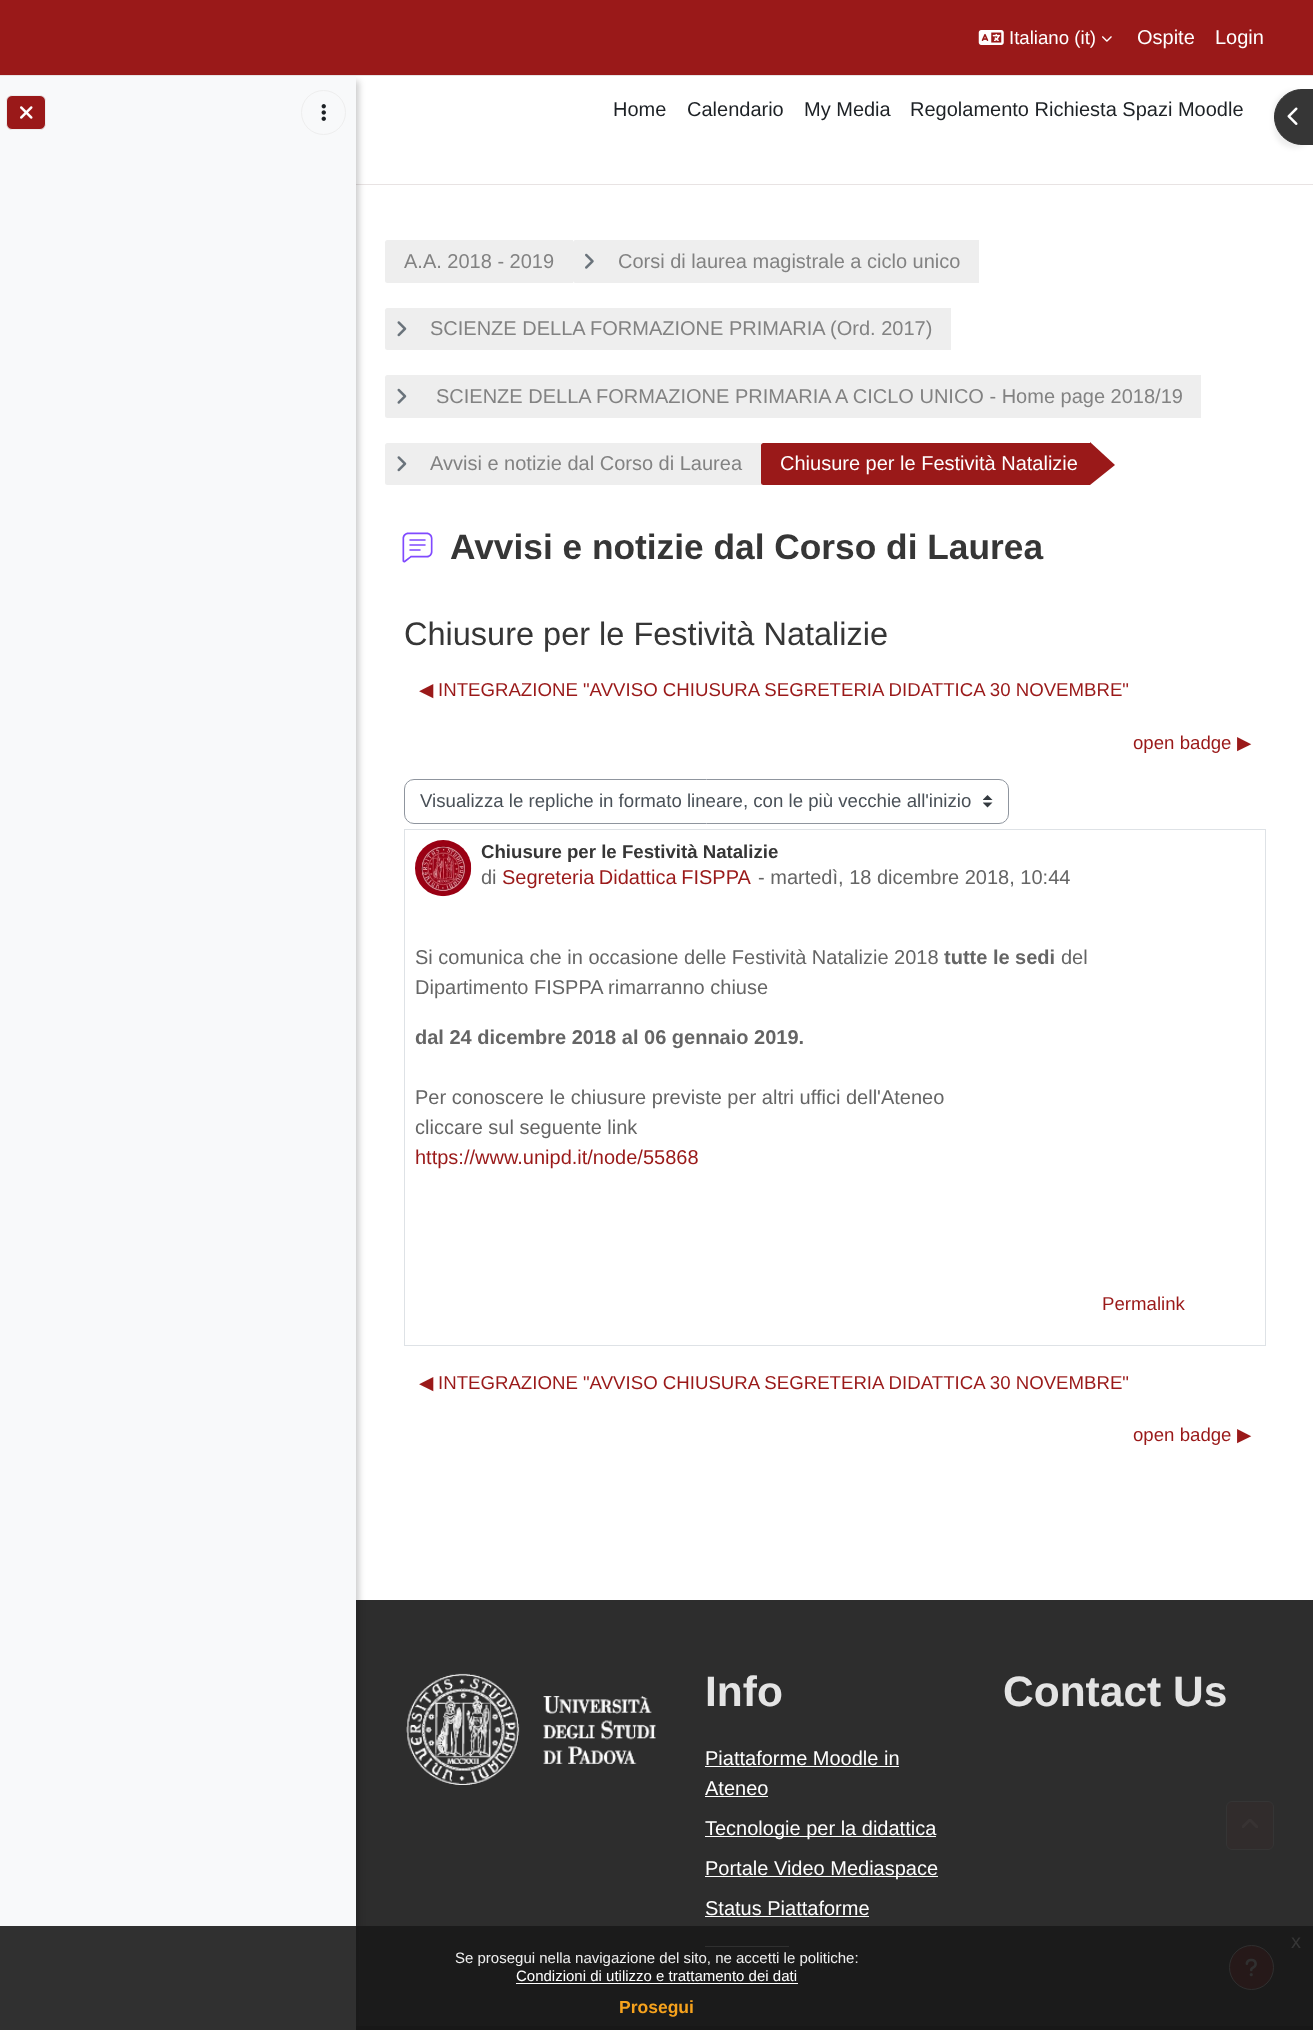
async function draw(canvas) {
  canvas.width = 1313;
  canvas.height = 2030;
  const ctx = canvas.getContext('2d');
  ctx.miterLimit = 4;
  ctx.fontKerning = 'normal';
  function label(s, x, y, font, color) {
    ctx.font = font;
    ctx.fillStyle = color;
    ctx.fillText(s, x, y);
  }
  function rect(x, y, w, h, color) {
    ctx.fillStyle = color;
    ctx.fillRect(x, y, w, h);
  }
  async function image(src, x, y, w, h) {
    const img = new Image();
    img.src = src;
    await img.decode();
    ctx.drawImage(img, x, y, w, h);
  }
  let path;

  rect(0, 0, 1313, 2030, '#fff');
  rect(356, 184, 957, 1, '#e8e3e3');
  rect(356, 1600, 957, 426, '#2d2d2d');
  rect(356, 2026, 957, 4, '#111');
  ctx.fillStyle = '#00000033';
  ctx.filter = 'blur(3px)';
  ctx.beginPath();
  ctx.rect(3, 81, 356, 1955);
  ctx.fill();
  ctx.filter = 'none';
  rect(0, 0, 1313, 75, '#9a1919');
  rect(0, 75, 1313, 1, '#e8e3e3');
  await image('assets/img1.png', 978, 30, 26, 15);
  label('Italiano (it)', 1009, 44, '18.65px Liberation Sans', '#fff');
  await image('assets/img2.png', 1102, 36, 10, 6);
  label('Ospite', 1137, 44, '20px Liberation Sans', '#fff');
  label('Login', 1215, 44, '20px Liberation Sans', '#fff');
  rect(0, 76, 356, 1954, '#f8f9fa');
  ctx.fillStyle = '#9a1919';
  ctx.beginPath();
  ctx.roundRect(6.5, 95.5, 39, 34, 5.5);
  ctx.fill();
  ctx.strokeStyle = '#eee';
  ctx.stroke();
  await image('assets/img3.png', 20, 106, 13, 13);
  ctx.beginPath();
  ctx.arc(323.5, 112.5, 22, 0, 2 * Math.PI);
  ctx.stroke();
  await image('assets/img4.png', 321, 104, 5, 17);
  label('Home', 613, 116, '20px Liberation Sans', '#1d2125');
  label('Calendario', 687, 116, '20px Liberation Sans', '#1d2125');
  label('My Media', 804, 116, '20px Liberation Sans', '#1d2125');
  label('Regolamento Richiesta Spazi Moodle', 910, 116, '20px Liberation Sans', '#1d2125');
  ctx.fillStyle = '#00000012';
  ctx.filter = 'blur(2.5px)';
  ctx.beginPath();
  ctx.roundRect(1274, 91, 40, 57, 28);
  ctx.fill();
  ctx.filter = 'none';
  ctx.fillStyle = '#363636';
  path = new Path2D('M1302 89.5H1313.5V144.5H1302C1287 144.5 1274.5 132 1274.5 117C1274.5 102 1287 89.5 1302 89.5Z');
  ctx.fill(path);
  ctx.strokeStyle = '#363636';
  ctx.stroke(path);
  await image('assets/img5.png', 1287, 107, 11, 18);
  ctx.fillStyle = '#eee';
  ctx.beginPath();
  ctx.roundRect(385, 240, 188, 43, [2.5, 0, 0, 2.5]);
  ctx.fill();
  label('A.A. 2018 - 2019', 404, 268, '20px Liberation Sans', '#828282');
  ctx.fillStyle = '#eee';
  ctx.beginPath();
  ctx.roundRect(573, 240, 406, 43, [2.5, 0, 0, 2.5]);
  ctx.fill();
  await image('assets/img6.png', 585, 253, 9, 16);
  label('Corsi di laurea magistrale a ciclo unico', 618, 268, '20px Liberation Sans', '#828282');
  ctx.fillStyle = '#eee';
  ctx.beginPath();
  ctx.roundRect(385, 308, 566, 42, [2.5, 0, 0, 2.5]);
  ctx.fill();
  await image('assets/img7.png', 397, 321, 10, 16);
  label('SCIENZE DELLA FORMAZIONE PRIMARIA (Ord. 2017)', 430, 335, '20px Liberation Sans', '#828282');
  ctx.fillStyle = '#eee';
  ctx.beginPath();
  ctx.roundRect(385, 375, 816, 43, [2.5, 0, 0, 2.5]);
  ctx.fill();
  await image('assets/img8.png', 397, 388, 10, 16);
  label('SCIENZE DELLA FORMAZIONE PRIMARIA A CICLO UNICO - Home page 2018/19', 436, 403, '20px Liberation Sans', '#828282');
  ctx.fillStyle = '#eee';
  ctx.beginPath();
  ctx.roundRect(385, 443, 376, 42, [2.5, 0, 0, 2.5]);
  ctx.fill();
  await image('assets/img7.png', 397, 456, 10, 16);
  label('Avvisi e notizie dal Corso di Laurea', 430, 470, '20px Liberation Sans', '#828282');
  ctx.fillStyle = '#9a1919';
  ctx.beginPath();
  ctx.roundRect(761, 443, 329, 42, [2.5, 0, 0, 2.5]);
  ctx.fill();
  label('Chiusure per le Festività Natalizie', 780, 470, '20px Liberation Sans', '#fff');
  ctx.fillStyle = '#9a1919';
  path = new Path2D('M1090 485V442L1115 465Z');
  ctx.fill(path);
  await image('assets/img9.png', 402, 532, 31, 31);
  label('Avvisi e notizie dal Corso di Laurea', 450, 559, 'bold 35.3px Liberation Sans', '#363636');
  label('Chiusure per le Festività Natalizie', 404, 645, '32.5px Liberation Sans', '#363636');
  label('◀︎', 419, 696, '18.65px DejaVu Sans', '#9a1919');
  label('INTEGRAZIONE "AVVISO CHIUSURA SEGRETERIA DIDATTICA 30 NOVEMBRE"', 438, 696, '18.65px Liberation Sans', '#9a1919');
  label('open badge', 1133, 749, '18.65px Liberation Sans', '#9a1919');
  label('▶︎', 1237, 749, '18.65px DejaVu Sans', '#9a1919');
  await image('assets/img10.png', 983, 795, 10, 13);
  ctx.beginPath();
  ctx.roundRect(404.5, 779.5, 604, 44, 9.5);
  ctx.strokeStyle = '#8f959e';
  ctx.stroke();
  label('Visualizza le repliche in formato lineare, con le più vecchie all\'inizio', 420, 807, '18.65px Liberation Sans', '#495057');
  ctx.strokeStyle = '#dee2e6';
  ctx.strokeRect(404.5, 829.5, 861, 516);
  await image('assets/img11.png', 415, 840, 57, 57);
  label('Chiusure per le Festività Natalizie', 481, 858, 'bold 18.65px Liberation Sans', '#363636');
  label('di', 481, 884, '20px Liberation Sans', '#656565');
  ctx.wordSpacing = '-1px';
  label('Segreteria Didattica FISPPA', 502, 884, '20px Liberation Sans', '#9a1919');
  ctx.wordSpacing = '0px';
  label('- martedì, 18 dicembre 2018, 10:44', 758, 884, '20px Liberation Sans', '#656565');
  label('Si comunica che in occasione delle Festività Natalizie 2018', 415, 964, '20px Liberation Sans', '#656565');
  label('tutte le sedi', 944, 964, 'bold 20px Liberation Sans', '#656565');
  label('del', 1061, 964, '20px Liberation Sans', '#656565');
  label('Dipartimento FISPPA rimarranno chiuse', 415, 994, '20px Liberation Sans', '#656565');
  label('dal 24 dicembre 2018 al 06 gennaio 2019.', 415, 1044, 'bold 20px Liberation Sans', '#656565');
  label('Per conoscere le chiusure previste per altri uffici dell\'Ateneo', 415, 1104, '20px Liberation Sans', '#656565');
  label('cliccare sul seguente link', 415, 1134, '20px Liberation Sans', '#656565');
  label('https://www.unipd.it/node/55868', 415, 1164, '20px Liberation Sans', '#9a1919');
  label('Permalink', 1102, 1310, '18.65px Liberation Sans', '#9a1919');
  label('◀︎', 419, 1389, '18.65px DejaVu Sans', '#9a1919');
  label('INTEGRAZIONE "AVVISO CHIUSURA SEGRETERIA DIDATTICA 30 NOVEMBRE"', 438, 1389, '18.65px Liberation Sans', '#9a1919');
  label('open badge', 1133, 1441, '18.65px Liberation Sans', '#9a1919');
  label('▶︎', 1237, 1441, '18.65px DejaVu Sans', '#9a1919');
  await image('assets/img12.png', 406, 1673, 250, 112);
  label('Info', 705, 1706, 'bold 42.5px Liberation Sans', '#e4e4e4');
  label('Piattaforme Moodle in', 705, 1765, '20px Liberation Sans', '#fff');
  rect(705, 1766, 194, 1, '#fff');
  label('Ateneo', 705, 1795, '20px Liberation Sans', '#fff');
  rect(705, 1796, 63, 1, '#fff');
  rect(705, 1836, 231, 1, '#fff');
  label('Tecnologie per la didattica', 705, 1835, '20px Liberation Sans', '#fff');
  rect(705, 1876, 233, 1, '#fff');
  label('Portale Video Mediaspace', 705, 1875, '20px Liberation Sans', '#fff');
  label('Status Piattaforme', 705, 1915, '20px Liberation Sans', '#fff');
  rect(705, 1916, 164, 1, '#fff');
  rect(705, 1946, 84, 1, '#fff');
  label('Contact Us', 1003, 1706, 'bold 42.5px Liberation Sans', '#e4e4e4');
  ctx.fillStyle = '#9a1919';
  ctx.beginPath();
  ctx.arc(1251.5, 1967.5, 22, 0, 2 * Math.PI);
  ctx.fill();
  ctx.strokeStyle = '#eee';
  ctx.stroke();
  await image('assets/img13.png', 1245, 1958, 12, 19);
  ctx.fillStyle = '#312c2c';
  ctx.beginPath();
  ctx.roundRect(1226.5, 1801.5, 47, 48, 5.5);
  ctx.fill();
  ctx.strokeStyle = '#353535';
  ctx.stroke();
  await image('assets/img14.png', 1242, 1819, 16, 9);
  rect(0, 1926, 1313, 104, '#191919e6');
  label('x', 1291, 1948, '20px Liberation Sans', '#363636');
  label('Se prosegui nella navigazione del sito, ne accetti le politiche:', 455, 1963, '15px Liberation Sans', '#efefef');
  label('Condizioni di utilizzo e trattamento dei dati', 516, 1981, '15px Liberation Sans', '#fff');
  rect(516, 1983, 282, 1, '#fff');
  label('Prosegui', 619, 2013, 'bold 17.5px Liberation Sans', '#f6a21d');
}

draw(document.querySelector('canvas'));
